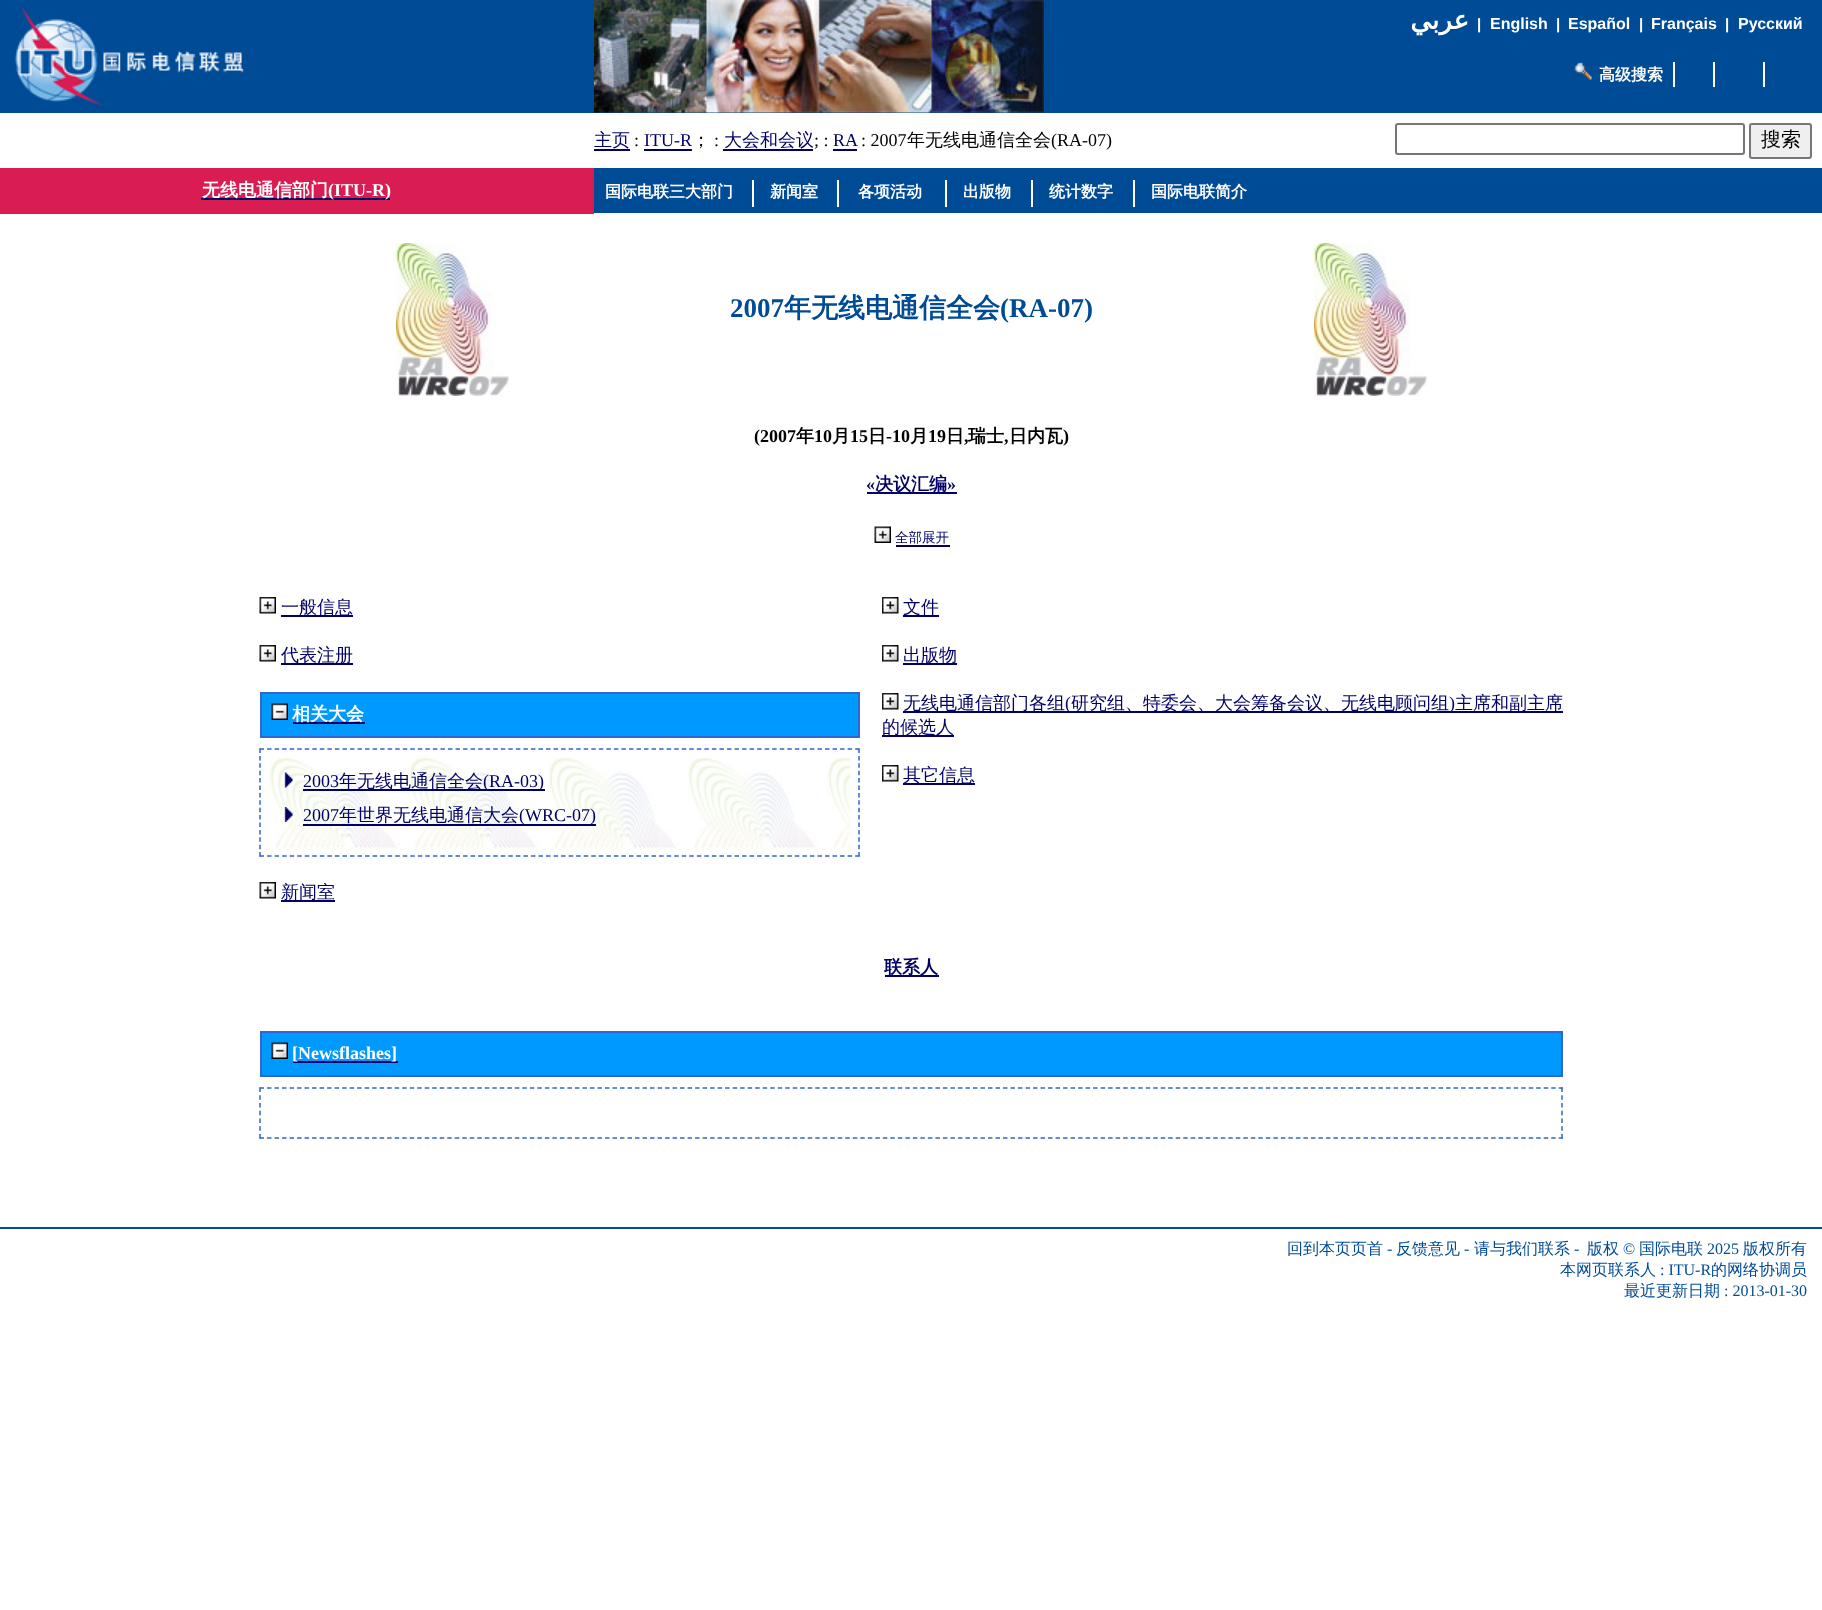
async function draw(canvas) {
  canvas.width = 1822;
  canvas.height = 1610;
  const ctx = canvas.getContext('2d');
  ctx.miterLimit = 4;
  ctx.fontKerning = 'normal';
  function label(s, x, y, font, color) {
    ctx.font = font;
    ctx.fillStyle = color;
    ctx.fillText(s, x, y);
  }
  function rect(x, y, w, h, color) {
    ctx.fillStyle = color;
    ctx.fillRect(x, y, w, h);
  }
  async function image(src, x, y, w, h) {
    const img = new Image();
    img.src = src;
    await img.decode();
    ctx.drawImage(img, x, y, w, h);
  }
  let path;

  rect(0, 0, 1822, 1610, '#fff');
  rect(0, 0, 1822, 113, '#004b96');
  await image('assets/img1.png', 14, 6, 230, 100);
  await image('assets/img2.png', 594, 0, 450, 113);
  ctx.direction = 'rtl';
  label('عربي', 1469, 29, 'bold 26px DejaVu Sans', '#fff');
  ctx.direction = 'ltr';
  label('|', 1477, 29, 'bold 15px Liberation Sans', '#fff');
  label('English', 1490, 29, 'bold 16px Liberation Sans', '#fff');
  label('|', 1556, 29, 'bold 15px Liberation Sans', '#fff');
  label('Español', 1568, 29, 'bold 16px Liberation Sans', '#fff');
  label('|', 1639, 29, 'bold 15px Liberation Sans', '#fff');
  label('Français', 1651, 29, 'bold 16px Liberation Sans', '#fff');
  label('|', 1725, 29, 'bold 15px Liberation Sans', '#fff');
  label('Русский', 1738, 29, 'bold 16px Liberation Sans', '#fff');
  rect(1673, 62, 2, 25, '#fff');
  await image('assets/img3.png', 1574, 62, 18, 18);
  label('高级搜索', 1599, 80, 'bold 16px WenQuanYi Zen Hei', '#fff');
  rect(1713, 62, 2, 25, '#fff');
  rect(1763, 62, 2, 25, '#fff');
  label('主页', 594, 146, '500 18px WenQuanYi Zen Hei', '#006');
  rect(594, 149, 36, 2, '#006');
  label(':', 634, 146, '18px Liberation Serif', '#000');
  label('ITU-R', 644, 146, '18px Liberation Serif', '#006');
  rect(644, 149, 48, 2, '#006');
  label('；', 692, 146, '500 18px WenQuanYi Zen Hei', '#000');
  label(':', 714, 146, '18px Liberation Serif', '#000');
  label('大会和会议', 724, 146, '500 18px WenQuanYi Zen Hei', '#006');
  rect(723, 149, 90, 2, '#006');
  label('; :', 814, 146, '18px Liberation Serif', '#000');
  label('RA', 833, 146, '18px Liberation Serif', '#006');
  rect(833, 149, 24, 2, '#006');
  label(': 2007', 861, 146, '18px Liberation Serif', '#000');
  label('年无线电通信全会', 907, 146, '500 18px WenQuanYi Zen Hei', '#000');
  label('(RA-07)', 1051, 146, '18px Liberation Serif', '#000');
  ctx.beginPath();
  ctx.roundRect(1396, 124, 348, 30, 2);
  ctx.strokeStyle = '#767676';
  ctx.lineWidth = 2;
  ctx.stroke();
  ctx.fillStyle = '#efefef';
  ctx.beginPath();
  ctx.roundRect(1750, 124, 61, 34, 2);
  ctx.fill();
  ctx.stroke();
  label('搜索', 1761, 146, '500 20px WenQuanYi Zen Hei', '#000');
  rect(0, 168, 593, 44, '#d91d52');
  rect(593, 168, 1, 45, '#d91d52');
  rect(0, 212, 594, 2, '#d91d52');
  rect(201, 198, 189, 2, '#006');
  label('无线电通信部门', 202, 196, 'bold 18px WenQuanYi Zen Hei', '#fff');
  label('(ITU-R)', 328, 196, 'bold 18px Liberation Serif', '#fff');
  rect(594, 168, 1228, 45, '#004b96');
  rect(0, 1227, 1822, 2, '#004b96');
  await image('assets/img4.png', 396, 243, 113, 153);
  label('2007', 730, 317, 'bold 27px Liberation Serif', '#004b96');
  label('年无线电通信全会', 784, 317, 'bold 27px WenQuanYi Zen Hei', '#004b96');
  label('(RA-07)', 1000, 317, 'bold 27px Liberation Serif', '#004b96');
  await image('assets/img5.png', 1314, 243, 113, 153);
  label('(2007', 754, 442, 'bold 18px Liberation Serif', '#000');
  label('年', 796, 442, 'bold 18px WenQuanYi Zen Hei', '#000');
  label('10', 814, 442, 'bold 18px Liberation Serif', '#000');
  label('月', 832, 442, 'bold 18px WenQuanYi Zen Hei', '#000');
  label('15', 850, 442, 'bold 18px Liberation Serif', '#000');
  label('日', 868, 442, 'bold 18px WenQuanYi Zen Hei', '#000');
  label('-10', 886, 442, 'bold 18px Liberation Serif', '#000');
  label('月', 910, 442, 'bold 18px WenQuanYi Zen Hei', '#000');
  label('19', 928, 442, 'bold 18px Liberation Serif', '#000');
  label('日', 946, 442, 'bold 18px WenQuanYi Zen Hei', '#000');
  label(',', 964, 442, 'bold 18px Liberation Serif', '#000');
  label('瑞士', 968, 442, 'bold 18px WenQuanYi Zen Hei', '#000');
  label(',', 1004, 442, 'bold 18px Liberation Serif', '#000');
  label('日内瓦', 1009, 442, 'bold 18px WenQuanYi Zen Hei', '#000');
  label(')', 1063, 442, 'bold 18px Liberation Serif', '#000');
  label('«', 866, 490, 'bold 18px Liberation Serif', '#006');
  rect(867, 492, 90, 2, '#006');
  label('决议汇编', 875, 490, 'bold 18px WenQuanYi Zen Hei', '#006');
  label('»', 947, 490, 'bold 18px Liberation Serif', '#006');
  await image('assets/img6.png', 874, 526, 17, 17);
  label('全部展开', 895, 542, '500 13.5px WenQuanYi Zen Hei', '#006');
  rect(896, 545, 54, 2, '#006');
  await image('assets/img7.png', 259, 597, 17, 17);
  rect(281, 615, 72, 2, '#006');
  label('一般信息', 281, 613, '500 18px WenQuanYi Zen Hei', '#006');
  await image('assets/img7.png', 259, 645, 17, 17);
  rect(281, 663, 72, 2, '#006');
  label('代表注册', 281, 661, '500 18px WenQuanYi Zen Hei', '#006');
  ctx.fillStyle = '#09f';
  ctx.beginPath();
  ctx.rect(261, 693, 598, 44);
  ctx.fill();
  ctx.strokeStyle = '#36c';
  ctx.stroke();
  await image('assets/img8.png', 271, 703, 17, 17);
  rect(293, 722, 72, 2, '#006');
  label('相关大会', 292, 720, 'bold 18px WenQuanYi Zen Hei', '#fff');
  path = new Path2D('M259.5 749H859.5');
  ctx.lineWidth = 1.5;
  ctx.setLineDash([4.5, 3.04]);
  ctx.stroke(path);
  path = new Path2D('M859 748.5V856.5');
  ctx.setLineDash([4.5, 2.9]);
  ctx.stroke(path);
  path = new Path2D('M259.5 856H859.5');
  ctx.setLineDash([4.5, 3.04]);
  ctx.stroke(path);
  path = new Path2D('M260 748.5V856.5');
  ctx.setLineDash([4.5, 2.9]);
  ctx.stroke(path);
  await image('assets/img9.png', 269, 757, 582, 91);
  await image('assets/img10.png', 284, 772, 9, 16);
  label('2003', 303, 787, '18px Liberation Serif', '#006');
  rect(303, 789, 242, 2, '#006');
  label('年无线电通信全会', 339, 787, '500 18px WenQuanYi Zen Hei', '#006');
  label('(RA-03)', 483, 787, '18px Liberation Serif', '#006');
  await image('assets/img11.png', 284, 807, 9, 15);
  label('2007', 303, 821, '18px Liberation Serif', '#006');
  label('年世界无线电通信大会', 339, 821, '500 18px WenQuanYi Zen Hei', '#006');
  rect(303, 824, 293, 2, '#006');
  label('(WRC-07)', 519, 821, '18px Liberation Serif', '#006');
  await image('assets/img7.png', 259, 882, 17, 17);
  rect(281, 900, 54, 2, '#006');
  label('新闻室', 281, 898, '500 18px WenQuanYi Zen Hei', '#006');
  await image('assets/img12.png', 882, 597, 17, 17);
  rect(903, 615, 36, 2, '#006');
  label('文件', 903, 613, '500 18px WenQuanYi Zen Hei', '#006');
  await image('assets/img12.png', 882, 645, 17, 17);
  rect(903, 663, 54, 2, '#006');
  label('出版物', 903, 661, '500 18px WenQuanYi Zen Hei', '#006');
  await image('assets/img12.png', 882, 693, 17, 17);
  rect(903, 711, 660, 2, '#006');
  label('无线电通信部门各组', 903, 709, '500 18px WenQuanYi Zen Hei', '#006');
  label('(', 1065, 709, '18px Liberation Serif', '#006');
  label('研究组、特委会、大会筹备会议、无线电顾问组', 1071, 709, '500 18px WenQuanYi Zen Hei', '#006');
  label(')', 1449, 709, '18px Liberation Serif', '#006');
  label('主席和副主席', 1455, 709, '500 18px WenQuanYi Zen Hei', '#006');
  rect(882, 735, 72, 2, '#006');
  label('的候选人', 882, 733, '500 18px WenQuanYi Zen Hei', '#006');
  await image('assets/img12.png', 882, 765, 17, 17);
  rect(903, 783, 72, 2, '#006');
  label('其它信息', 903, 781, '500 18px WenQuanYi Zen Hei', '#006');
  rect(885, 975, 54, 2, '#006');
  label('联系人', 884, 973, 'bold 18px WenQuanYi Zen Hei', '#006');
  ctx.fillStyle = '#09f';
  ctx.beginPath();
  ctx.rect(261, 1032, 1301, 44);
  ctx.fill();
  ctx.lineWidth = 2;
  ctx.setLineDash([]);
  ctx.stroke();
  await image('assets/img8.png', 271, 1042, 17, 17);
  rect(293, 1061, 105, 2, '#006');
  label('[Newsflashes]', 292, 1059, 'bold 18px Liberation Serif', '#fff');
  path = new Path2D('M259.5 1088H1563');
  ctx.lineWidth = 1.5;
  ctx.setLineDash([4.5, 3.01]);
  ctx.stroke(path);
  path = new Path2D('M1562 1087.5V1138.5');
  ctx.setLineDash([4.5, 3.25]);
  ctx.stroke(path);
  path = new Path2D('M259.5 1138H1563');
  ctx.setLineDash([4.5, 3.01]);
  ctx.stroke(path);
  path = new Path2D('M260 1087.5V1138.5');
  ctx.setLineDash([4.5, 3.25]);
  ctx.stroke(path);
  label('回到本页页首', 1287, 1254, '500 16px WenQuanYi Zen Hei', '#004b96');
  label('-', 1387, 1254, '16px Liberation Serif', '#004b96');
  label('反馈意见', 1396, 1254, '500 16px WenQuanYi Zen Hei', '#004b96');
  label('-', 1464, 1254, '16px Liberation Serif', '#004b96');
  label('请与我们联系', 1474, 1254, '500 16px WenQuanYi Zen Hei', '#004b96');
  label('-', 1574, 1254, '16px Liberation Serif', '#004b96');
  label('版权', 1587, 1254, '500 16px WenQuanYi Zen Hei', '#004b96');
  label('©', 1623, 1254, '16px Liberation Serif', '#004b96');
  label('国际电联', 1639, 1254, '500 16px WenQuanYi Zen Hei', '#004b96');
  label('2025', 1707, 1254, '16px Liberation Serif', '#004b96');
  label('版权所有', 1743, 1254, '500 16px WenQuanYi Zen Hei', '#004b96');
  label('本网页联系人', 1560, 1275, '500 16px WenQuanYi Zen Hei', '#004b96');
  label(': ITU-R', 1660, 1275, '16px Liberation Serif', '#004b96');
  label('的网络协调员', 1711, 1275, '500 16px WenQuanYi Zen Hei', '#004b96');
  label('最近更新日期', 1624, 1296, '500 16px WenQuanYi Zen Hei', '#004b96');
  label(': 2013-01-30', 1724, 1296, '16px Liberation Serif', '#004b96');
  label('国际电联三大部门', 605, 197, 'bold 16px WenQuanYi Zen Hei', '#fff');
  rect(752, 180, 2, 27, '#fff');
  label('新闻室', 770, 197, 'bold 16px WenQuanYi Zen Hei', '#fff');
  rect(837, 180, 2, 27, '#fff');
  label('各项活动', 858, 197, 'bold 16px WenQuanYi Zen Hei', '#fff');
  rect(945, 180, 2, 27, '#fff');
  label('出版物', 963, 197, 'bold 16px WenQuanYi Zen Hei', '#fff');
  rect(1031, 180, 2, 27, '#fff');
  label('统计数字', 1049, 197, 'bold 16px WenQuanYi Zen Hei', '#fff');
  rect(1133, 180, 2, 27, '#fff');
  label('国际电联简介', 1151, 197, 'bold 16px WenQuanYi Zen Hei', '#fff');
}

draw(document.querySelector('canvas'));
